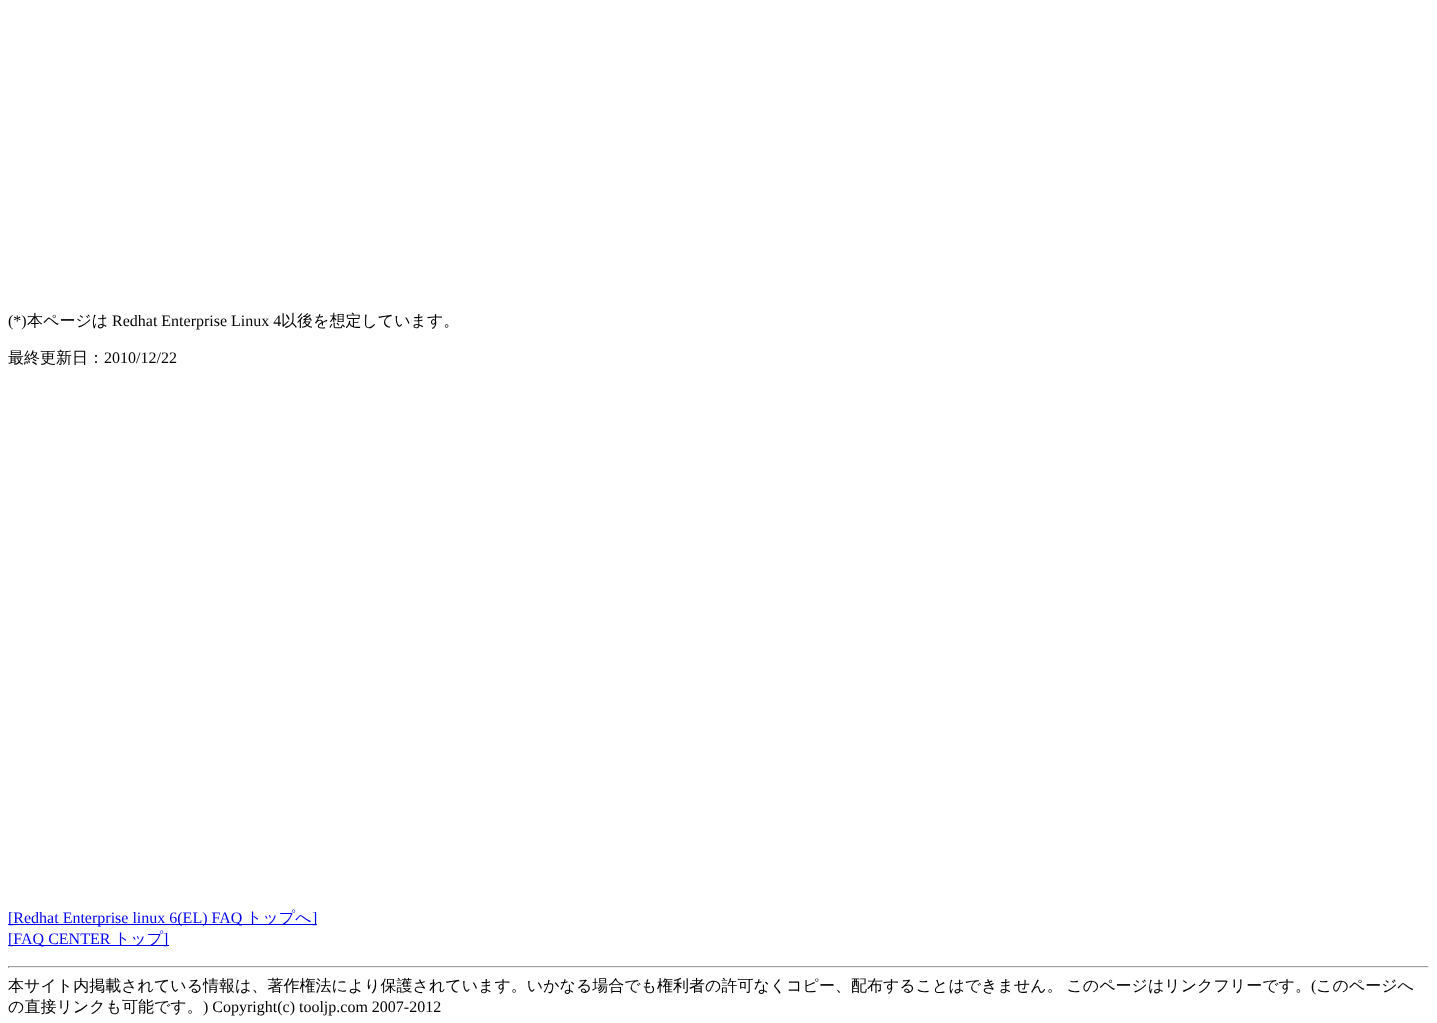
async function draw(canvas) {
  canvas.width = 1437;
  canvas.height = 1023;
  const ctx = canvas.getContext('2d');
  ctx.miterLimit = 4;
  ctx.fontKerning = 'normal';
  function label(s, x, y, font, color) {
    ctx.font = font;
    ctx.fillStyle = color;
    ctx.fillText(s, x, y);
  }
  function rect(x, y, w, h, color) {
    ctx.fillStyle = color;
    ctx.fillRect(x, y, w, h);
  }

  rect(0, 0, 1437, 1023, '#fff');
  label('(*)', 8, 326, '16px Liberation Serif', '#000');
  label('本ページは', 27, 326, '500 16px WenQuanYi Zen Hei', '#000');
  label('Redhat Enterprise Linux 4', 112, 326, '16px Liberation Serif', '#000');
  label('以後を想定しています。', 281, 326, '500 16px WenQuanYi Zen Hei', '#000');
  label('最終更新日：', 8, 363, '500 16px WenQuanYi Zen Hei', '#000');
  label('2010/12/22', 104, 363, '16px Liberation Serif', '#000');
  rect(8, 924, 309, 1, '#00e');
  label('[Redhat Enterprise linux 6(EL) FAQ', 8, 923, '16px Liberation Serif', '#00e');
  label('トップへ', 246, 923, '500 16px WenQuanYi Zen Hei', '#00e');
  label(']', 312, 923, '16px Liberation Serif', '#00e');
  rect(8, 945, 161, 1, '#00e');
  label('[FAQ CENTER', 8, 944, '16px Liberation Serif', '#00e');
  label('トップ', 114, 944, '500 16px WenQuanYi Zen Hei', '#00e');
  label(']', 163, 944, '16px Liberation Serif', '#00e');
  rect(8, 966, 1421, 1, '#9f9f9f');
  rect(1428, 966, 1, 2, '#eee');
  rect(8, 967, 1421, 1, '#eee');
  rect(8, 966, 1, 2, '#9f9f9f');
  ctx.wordSpacing = '-1px';
  label('本サイト内掲載されている情報は、著作権法により保護されています。いかなる場合でも権利者の許可なくコピー、配布することはできません。 このページはリンクフリーです。', 8, 991, '500 16px WenQuanYi Zen Hei', '#000');
  ctx.wordSpacing = '0px';
  label('(', 1311, 991, '16px Liberation Serif', '#000');
  label('このページへ', 1316, 991, '500 16px WenQuanYi Zen Hei', '#000');
  label('の直接リンクも可能です。', 8, 1012, '500 16px WenQuanYi Zen Hei', '#000');
  label(') Copyright(c) tooljp.com 2007-2012', 203, 1012, '16px Liberation Serif', '#000');
}

draw(document.querySelector('canvas'));
